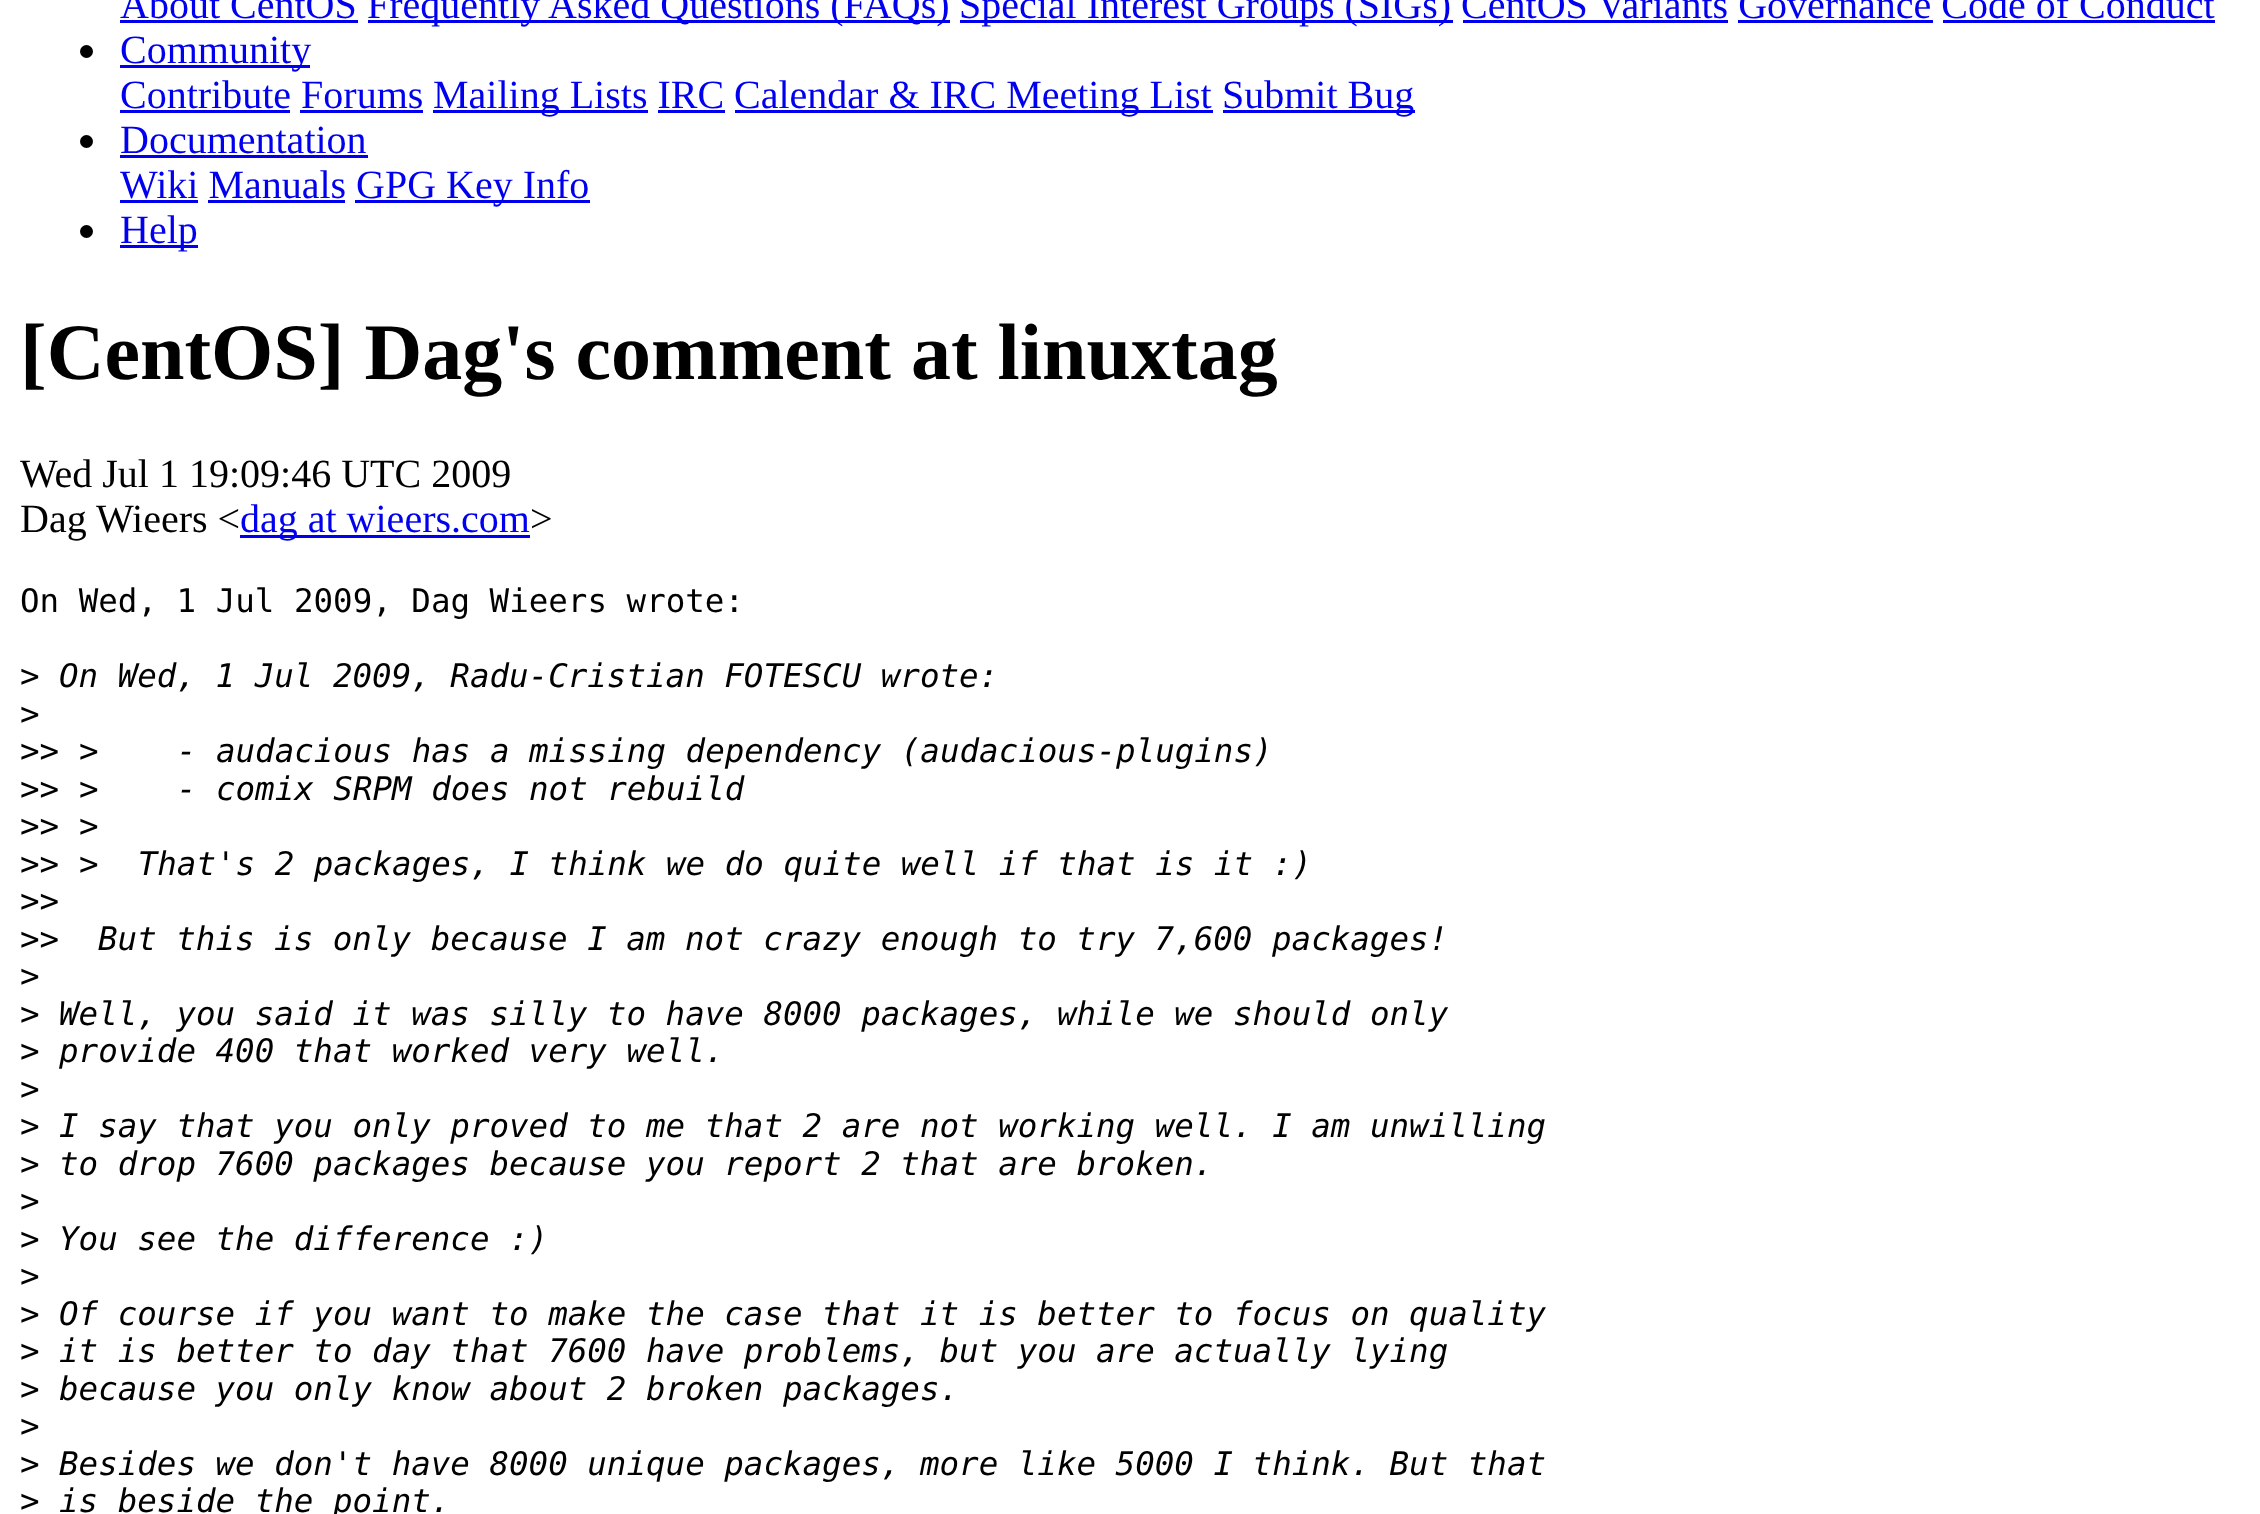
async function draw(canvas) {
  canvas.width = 2260;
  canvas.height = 1514;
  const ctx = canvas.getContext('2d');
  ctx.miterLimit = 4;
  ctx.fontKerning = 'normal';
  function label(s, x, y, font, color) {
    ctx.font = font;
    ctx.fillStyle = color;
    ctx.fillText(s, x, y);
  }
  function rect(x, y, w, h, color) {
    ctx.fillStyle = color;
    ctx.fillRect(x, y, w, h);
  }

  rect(0, 0, 2260, 1514, '#fff');
  label('About CentOS', 120, 18, '40px Liberation Serif', '#00e');
  rect(120, 20, 238, 3, '#00e');
  rect(368, 20, 582, 3, '#00e');
  label('Frequently Asked Questions (FAQs)', 367, 18, '40px Liberation Serif', '#00e');
  rect(960, 20, 493, 3, '#00e');
  label('Special Interest Groups (SIGs) CentOS Variants Governance Code of Conduct', 959, 18, '40px Liberation Serif', '#00e');
  rect(1463, 20, 265, 3, '#00e');
  rect(1738, 20, 195, 3, '#00e');
  rect(1943, 20, 272, 3, '#00e');
  ctx.fillStyle = '#000';
  ctx.beginPath();
  ctx.arc(86.5, 51.5, 6.5, 0, 2 * Math.PI);
  ctx.fill();
  rect(120, 65, 190, 3, '#00e');
  label('Community', 120, 63, '40px Liberation Serif', '#00e');
  label('Contribute Forums', 120, 108, '40px Liberation Serif', '#00e');
  rect(120, 110, 170, 3, '#00e');
  rect(433, 110, 215, 3, '#00e');
  label('Mailing Lists IRC', 433, 108, '40px Liberation Serif', '#00e');
  rect(735, 110, 478, 3, '#00e');
  label('Calendar & IRC Meeting List', 734, 108, '40px Liberation Serif', '#00e');
  rect(1223, 110, 192, 3, '#00e');
  label('Submit Bug', 1222, 108, '40px Liberation Serif', '#00e');
  rect(300, 110, 123, 3, '#00e');
  rect(658, 110, 67, 3, '#00e');
  ctx.fillStyle = '#000';
  ctx.beginPath();
  ctx.arc(86.5, 141.5, 6.5, 0, 2 * Math.PI);
  ctx.fill();
  label('Documentation', 120, 153, '40px Liberation Serif', '#00e');
  rect(120, 155, 248, 3, '#00e');
  label('Wiki Manuals', 120, 198, '40px Liberation Serif', '#00e');
  rect(120, 200, 78, 3, '#00e');
  rect(355, 200, 235, 3, '#00e');
  label('GPG Key Info', 356, 198, '40px Liberation Serif', '#00e');
  rect(208, 200, 137, 3, '#00e');
  ctx.fillStyle = '#000';
  ctx.beginPath();
  ctx.arc(86.5, 231.5, 6.5, 0, 2 * Math.PI);
  ctx.fill();
  rect(120, 245, 78, 3, '#00e');
  label('Help', 120, 243, '40px Liberation Serif', '#00e');
  label('[CentOS] Dag\'s comment at linuxtag', 20, 379, 'bold 80px Liberation Serif', '#000');
  label('Wed Jul 1 19:09:46 UTC 2009', 20, 487, '40px Liberation Serif', '#000');
  label('Dag Wieers <', 20, 532, '40px Liberation Serif', '#000');
  rect(240, 535, 290, 3, '#00e');
  label('dag at wieers.com', 240, 532, '40px Liberation Serif', '#00e');
  label('>', 530, 532, '40px Liberation Serif', '#000');
  label('On Wed, 1 Jul 2009, Dag Wieers wrote:', 20, 612, '32.5px DejaVu Sans Mono', '#000');
  label('>', 20, 687, '32.5px DejaVu Sans Mono', '#000');
  label('On Wed, 1 Jul 2009, Radu-Cristian FOTESCU wrote:', 59, 687, 'italic 32.5px DejaVu Sans Mono', '#000');
  label('>', 20, 725, '32.5px DejaVu Sans Mono', '#000');
  label('>>', 20, 762, '32.5px DejaVu Sans Mono', '#000');
  label('>    - audacious has a missing dependency (audacious-plugins)', 79, 762, 'italic 32.5px DejaVu Sans Mono', '#000');
  label('>>', 20, 800, '32.5px DejaVu Sans Mono', '#000');
  label('>    - comix SRPM does not rebuild', 79, 800, 'italic 32.5px DejaVu Sans Mono', '#000');
  label('>>', 20, 837, '32.5px DejaVu Sans Mono', '#000');
  label('>', 79, 837, 'italic 32.5px DejaVu Sans Mono', '#000');
  label('>>', 20, 875, '32.5px DejaVu Sans Mono', '#000');
  label('>  That\'s 2 packages, I think we do quite well if that is it :)', 79, 875, 'italic 32.5px DejaVu Sans Mono', '#000');
  label('>>', 20, 912, '32.5px DejaVu Sans Mono', '#000');
  label('>>', 20, 950, '32.5px DejaVu Sans Mono', '#000');
  label('But this is only because I am not crazy enough to try 7,600 packages!', 98, 950, 'italic 32.5px DejaVu Sans Mono', '#000');
  label('>', 20, 987, '32.5px DejaVu Sans Mono', '#000');
  label('>', 20, 1025, '32.5px DejaVu Sans Mono', '#000');
  label('Well, you said it was silly to have 8000 packages, while we should only', 59, 1025, 'italic 32.5px DejaVu Sans Mono', '#000');
  label('>', 20, 1062, '32.5px DejaVu Sans Mono', '#000');
  label('provide 400 that worked very well.', 59, 1062, 'italic 32.5px DejaVu Sans Mono', '#000');
  label('>', 20, 1100, '32.5px DejaVu Sans Mono', '#000');
  label('>', 20, 1137, '32.5px DejaVu Sans Mono', '#000');
  label('I say that you only proved to me that 2 are not working well. I am unwilling', 59, 1137, 'italic 32.5px DejaVu Sans Mono', '#000');
  label('>', 20, 1175, '32.5px DejaVu Sans Mono', '#000');
  label('to drop 7600 packages because you report 2 that are broken.', 59, 1175, 'italic 32.5px DejaVu Sans Mono', '#000');
  label('>', 20, 1212, '32.5px DejaVu Sans Mono', '#000');
  label('>', 20, 1250, '32.5px DejaVu Sans Mono', '#000');
  label('You see the difference :)', 59, 1250, 'italic 32.5px DejaVu Sans Mono', '#000');
  label('>', 20, 1287, '32.5px DejaVu Sans Mono', '#000');
  label('>', 20, 1325, '32.5px DejaVu Sans Mono', '#000');
  label('Of course if you want to make the case that it is better to focus on quality', 59, 1325, 'italic 32.5px DejaVu Sans Mono', '#000');
  label('>', 20, 1362, '32.5px DejaVu Sans Mono', '#000');
  label('it is better to day that 7600 have problems, but you are actually lying', 59, 1362, 'italic 32.5px DejaVu Sans Mono', '#000');
  label('>', 20, 1400, '32.5px DejaVu Sans Mono', '#000');
  label('because you only know about 2 broken packages.', 59, 1400, 'italic 32.5px DejaVu Sans Mono', '#000');
  label('>', 20, 1437, '32.5px DejaVu Sans Mono', '#000');
  label('>', 20, 1475, '32.5px DejaVu Sans Mono', '#000');
  label('Besides we don\'t have 8000 unique packages, more like 5000 I think. But that', 59, 1475, 'italic 32.5px DejaVu Sans Mono', '#000');
  label('>', 20, 1512, '32.5px DejaVu Sans Mono', '#000');
  label('is beside the point.', 59, 1512, 'italic 32.5px DejaVu Sans Mono', '#000');
}

draw(document.querySelector('canvas'));
